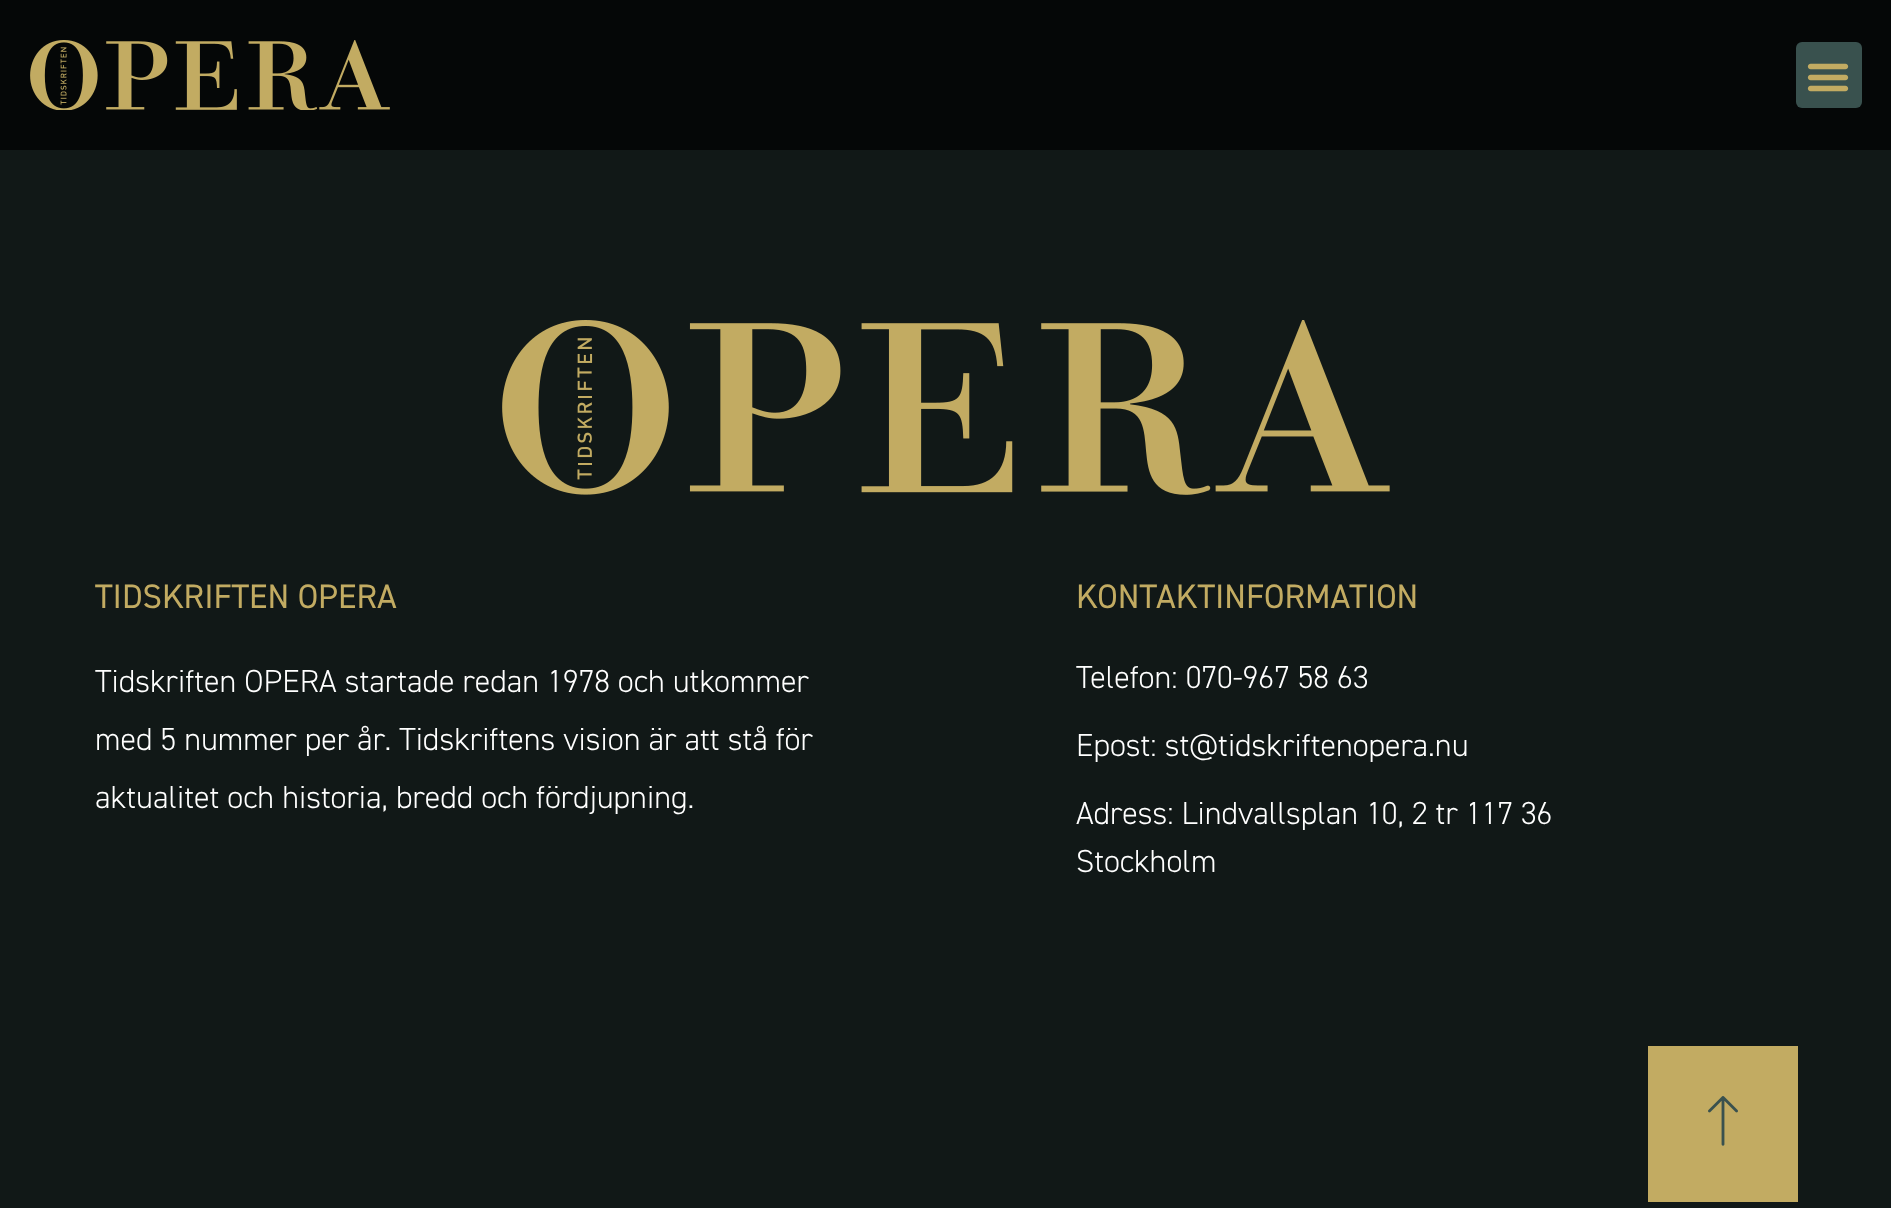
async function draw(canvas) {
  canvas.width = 1891;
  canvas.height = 1208;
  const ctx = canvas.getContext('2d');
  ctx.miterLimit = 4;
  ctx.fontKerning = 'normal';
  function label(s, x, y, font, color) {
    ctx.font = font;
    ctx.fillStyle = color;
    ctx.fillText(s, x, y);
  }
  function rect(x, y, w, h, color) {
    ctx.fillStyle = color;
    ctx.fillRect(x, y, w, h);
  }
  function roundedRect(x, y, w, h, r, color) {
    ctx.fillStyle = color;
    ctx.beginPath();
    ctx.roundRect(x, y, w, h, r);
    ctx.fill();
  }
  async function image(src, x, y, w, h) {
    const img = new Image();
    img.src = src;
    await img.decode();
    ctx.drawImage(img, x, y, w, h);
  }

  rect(0, 0, 1891, 1208, '#111817');
  rect(0, 0, 1891, 150, '#050707');
  await image('assets/img1.png', 30, 40, 360, 70);
  roundedRect(1796, 42, 66, 66, 6, '#39514e');
  await image('assets/img2.png', 1807, 63, 42, 29);
  await image('assets/img3.png', 502, 320, 888, 175);
  label('TIDSKRIFTEN OPERA', 95, 608, '34px "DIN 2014"', '#c2ab62');
  label('Tidskriften OPERA startade redan 1978 och utkommer', 95, 692, '300 32px "DIN 2014"', '#fff');
  label('med 5 nummer per år. Tidskriftens vision är att stå för', 95, 750, '300 32px "DIN 2014"', '#fff');
  label('aktualitet och historia, bredd och fördjupning.', 95, 808, '300 32px "DIN 2014"', '#fff');
  label('KONTAKTINFORMATION', 1076, 608, '34px "DIN 2014"', '#c2ab62');
  label('Telefon: 070-967 58 63', 1076, 688, '300 32px "DIN 2014"', '#fff');
  label('Epost: st@tidskriftenopera.nu', 1076, 756, '300 32px "DIN 2014"', '#fff');
  label('Adress: Lindvallsplan 10, 2 tr 117 36', 1076, 824, '300 32px "DIN 2014"', '#fff');
  label('Stockholm', 1076, 872, '300 32px "DIN 2014"', '#fff');
  rect(1648, 1046, 150, 156, '#c2ab62');
  await image('assets/img4.png', 1708, 1096, 30, 50);
}

draw(document.querySelector('canvas'));
